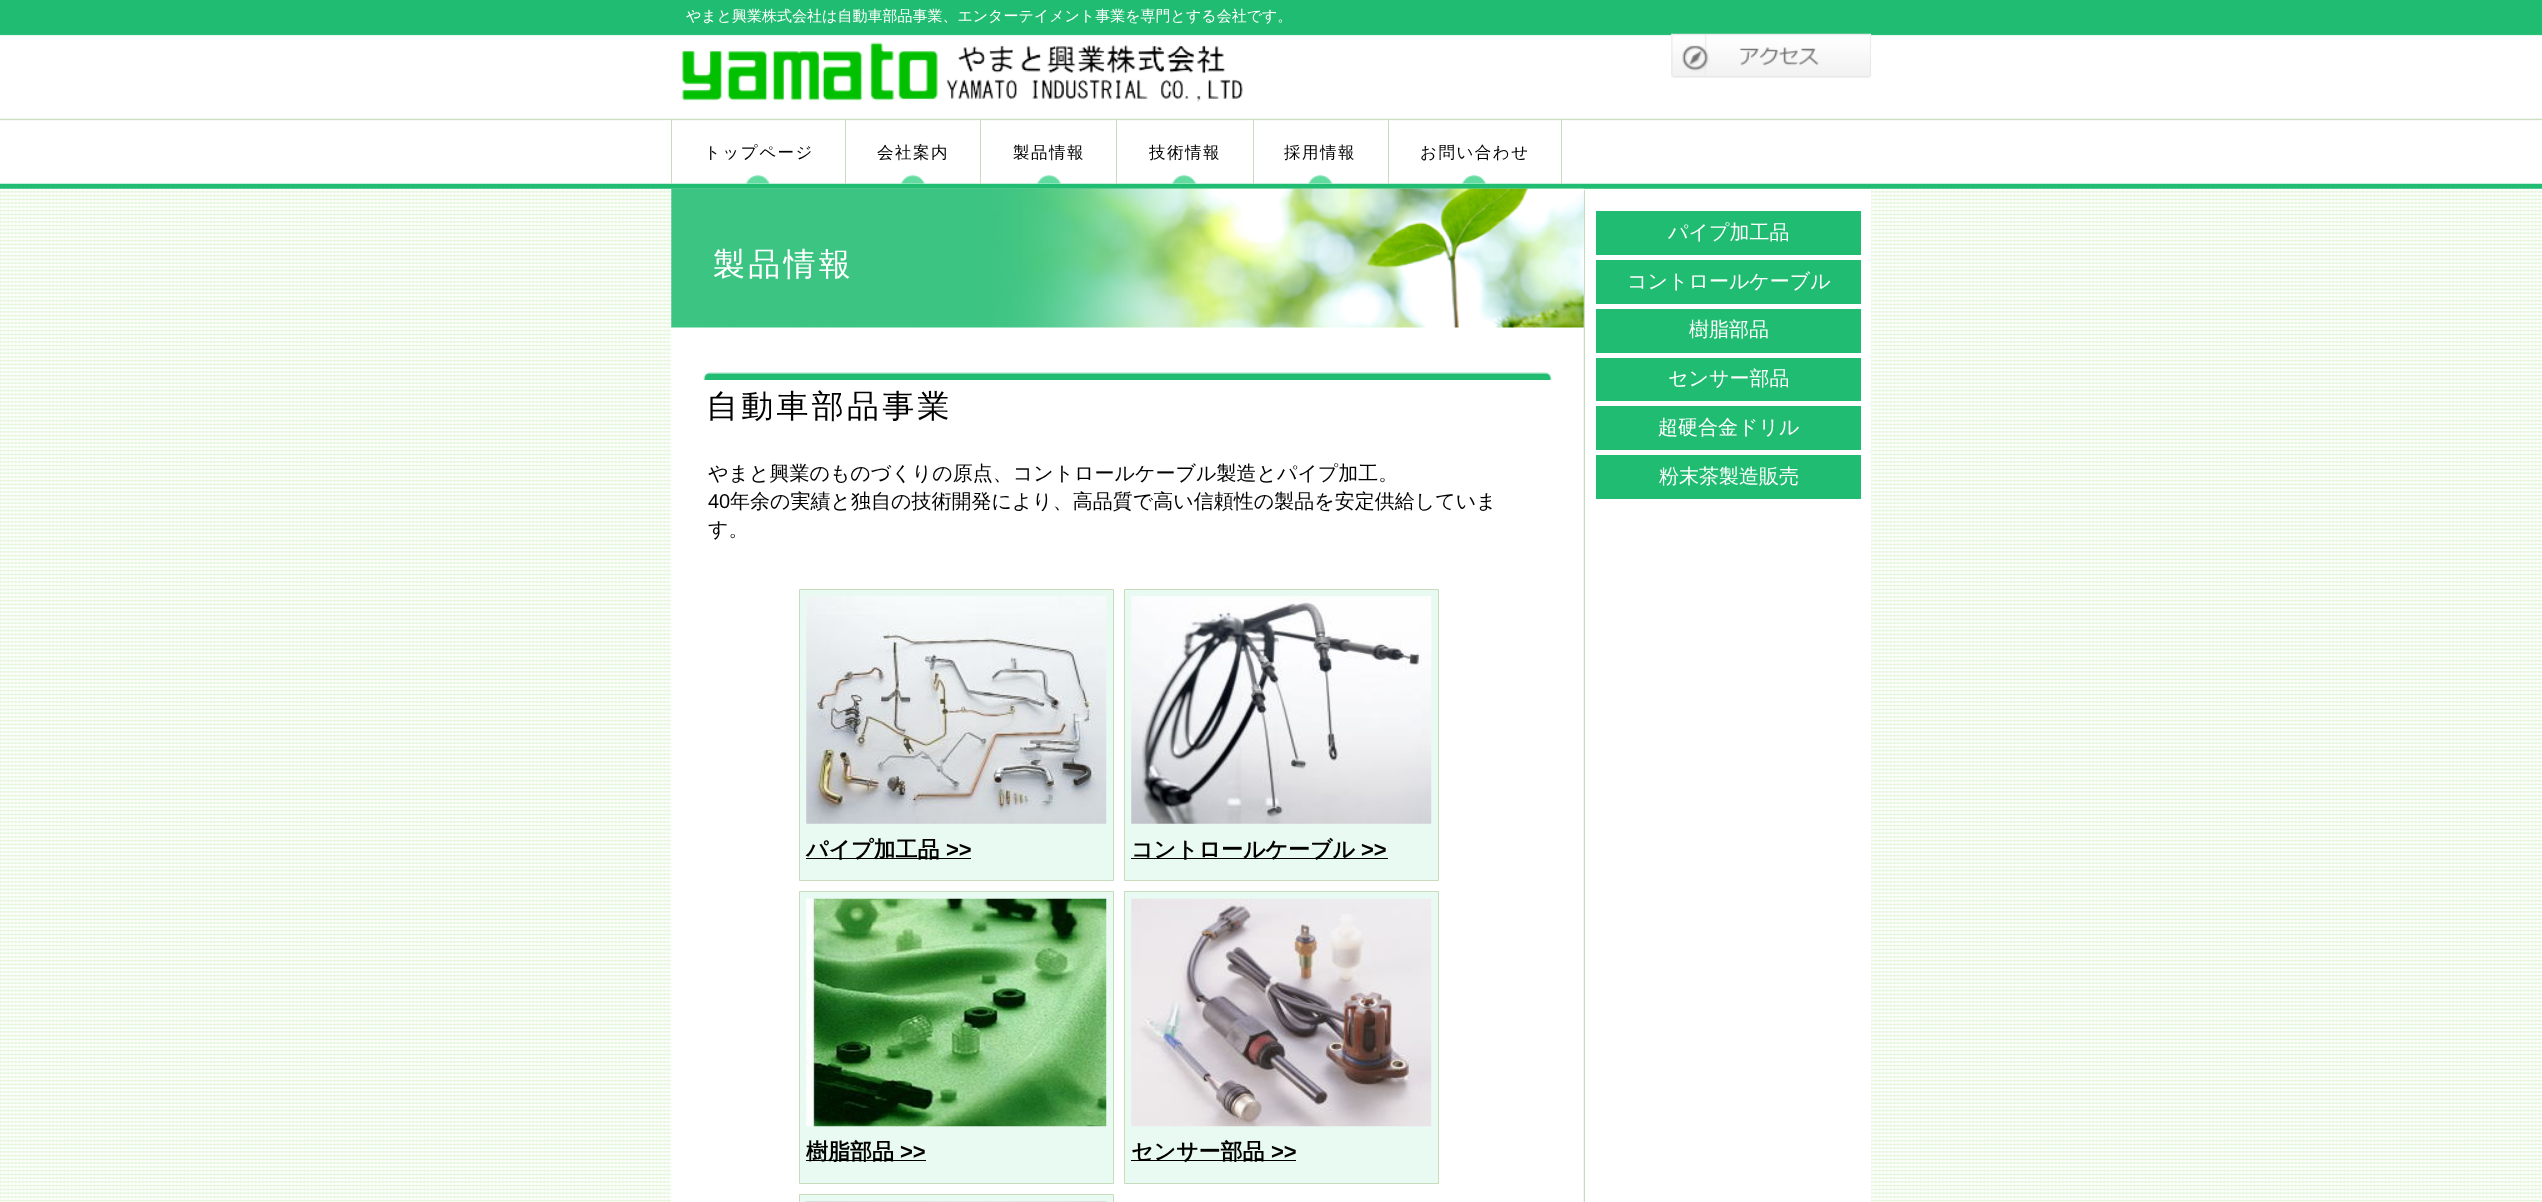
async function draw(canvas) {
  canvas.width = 2542;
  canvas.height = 1202;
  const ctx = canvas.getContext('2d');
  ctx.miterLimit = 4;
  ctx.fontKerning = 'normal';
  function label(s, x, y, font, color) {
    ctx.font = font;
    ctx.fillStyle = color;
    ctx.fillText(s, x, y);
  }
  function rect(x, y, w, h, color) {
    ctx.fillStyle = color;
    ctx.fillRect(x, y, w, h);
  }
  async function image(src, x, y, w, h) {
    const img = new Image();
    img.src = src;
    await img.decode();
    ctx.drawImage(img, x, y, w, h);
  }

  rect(0, 0, 2542, 1202, '#fff');
  await image('assets/img1.png', 0, 188, 2542, 1014);
  await image('assets/img2.png', 0, 0, 2542, 189);
  label('やまと興業株式会社は自動車部品事業、エンターテイメント事業を専門とする会社です。', 686, 21, '500 15px WenQuanYi Zen Hei', '#fff');
  await image('assets/img3.png', 682, 42, 561, 60);
  await image('assets/img4.png', 1671, 33, 201, 45);
  rect(671, 190, 1200, 1012, '#fff');
  await image('assets/img5.png', 1583, 190, 2, 1012);
  await image('assets/img6.png', 746, 174, 24, 10);
  rect(845, 120, 1, 64, '#c8dcbd');
  rect(671, 120, 1, 64, '#c8dcbd');
  ctx.letterSpacing = '1.5px';
  label('トップページ', 704, 158, '500 16.5px WenQuanYi Zen Hei', '#000');
  await image('assets/img7.png', 901, 174, 24, 10);
  rect(980, 120, 1, 64, '#c8dcbd');
  label('会社案内', 877, 158, '500 16.5px WenQuanYi Zen Hei', '#000');
  await image('assets/img8.png', 1037, 174, 25, 10);
  rect(1116, 120, 1, 64, '#c8dcbd');
  label('製品情報', 1013, 158, '500 16.5px WenQuanYi Zen Hei', '#000');
  await image('assets/img8.png', 1172, 174, 25, 10);
  rect(1253, 120, 1, 64, '#c8dcbd');
  label('技術情報', 1149, 158, '500 16.5px WenQuanYi Zen Hei', '#000');
  await image('assets/img9.png', 1308, 174, 25, 10);
  rect(1388, 120, 1, 64, '#c8dcbd');
  label('採用情報', 1284, 158, '500 16.5px WenQuanYi Zen Hei', '#000');
  await image('assets/img8.png', 1462, 174, 25, 10);
  rect(1561, 120, 1, 64, '#c8dcbd');
  label('お問い合わせ', 1420, 158, '500 16.5px WenQuanYi Zen Hei', '#000');
  await image('assets/img10.png', 671, 188, 913, 140);
  ctx.letterSpacing = '3.25px';
  label('製品情報', 713, 275, '500 32px WenQuanYi Zen Hei', '#fff');
  await image('assets/img11.png', 703, 372, 849, 8);
  label('自動車部品事業', 706, 417, '500 32px WenQuanYi Zen Hei', '#000');
  ctx.letterSpacing = '0px';
  label('やまと興業のものづくりの原点、コントロールケーブル製造とパイプ加工。', 708, 480, '500 20px WenQuanYi Zen Hei', '#000');
  label('40', 708, 508, '20px Liberation Sans', '#000');
  label('年余の実績と独自の技術開発により、高品質で高い信頼性の製品を安定供給していま', 730, 508, '500 20px WenQuanYi Zen Hei', '#000');
  label('す。', 708, 536, '500 20px WenQuanYi Zen Hei', '#000');
  ctx.fillStyle = '#e9faf2';
  ctx.beginPath();
  ctx.rect(799.5, 589.5, 314, 291);
  ctx.fill();
  ctx.strokeStyle = '#c8dcbd';
  ctx.stroke();
  await image('assets/img12.png', 806, 596, 301, 228);
  rect(806, 858, 165, 1, '#000');
  label('パイプ加工品', 806, 857, 'bold 22px WenQuanYi Zen Hei', '#000');
  label('>>', 946, 857, 'bold 22px Liberation Sans', '#000');
  ctx.fillStyle = '#e9faf2';
  ctx.beginPath();
  ctx.rect(1124.5, 589.5, 314, 291);
  ctx.fill();
  ctx.stroke();
  await image('assets/img13.png', 1131, 596, 301, 228);
  rect(1131, 858, 257, 1, '#000');
  label('コントロールケーブル', 1131, 857, 'bold 22px WenQuanYi Zen Hei', '#000');
  label('>>', 1361, 857, 'bold 22px Liberation Sans', '#000');
  ctx.fillStyle = '#e9faf2';
  ctx.beginPath();
  ctx.rect(799.5, 891.5, 314, 292);
  ctx.fill();
  ctx.stroke();
  await image('assets/img14.png', 806, 898, 301, 229);
  rect(806, 1160, 120, 1, '#000');
  label('樹脂部品', 806, 1159, 'bold 22px WenQuanYi Zen Hei', '#000');
  label('>>', 900, 1159, 'bold 22px Liberation Sans', '#000');
  ctx.fillStyle = '#e9faf2';
  ctx.beginPath();
  ctx.rect(1124.5, 891.5, 314, 292);
  ctx.fill();
  ctx.stroke();
  await image('assets/img15.png', 1131, 898, 301, 229);
  rect(1131, 1160, 165, 1, '#000');
  label('センサー部品', 1131, 1159, 'bold 22px WenQuanYi Zen Hei', '#000');
  label('>>', 1271, 1159, 'bold 22px Liberation Sans', '#000');
  ctx.fillStyle = '#e9faf2';
  ctx.beginPath();
  ctx.rect(799.5, 1194.5, 314, 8);
  ctx.fill();
  ctx.stroke();
  await image('assets/img16.png', 806, 1201, 301, 1);
  rect(1596, 211, 265, 44, '#20bc71');
  label('パイプ加工品', 1668, 239, '500 20px WenQuanYi Zen Hei', '#fff');
  rect(1596, 260, 265, 44, '#20bc71');
  label('コントロールケーブル', 1627, 288, '500 20px WenQuanYi Zen Hei', '#fff');
  rect(1596, 309, 265, 44, '#20bc71');
  label('樹脂部品', 1689, 336, '500 20px WenQuanYi Zen Hei', '#fff');
  rect(1596, 358, 265, 43, '#20bc71');
  label('センサー部品', 1668, 385, '500 20px WenQuanYi Zen Hei', '#fff');
  rect(1596, 406, 265, 44, '#20bc71');
  label('超硬合金ドリル', 1658, 434, '500 20px WenQuanYi Zen Hei', '#fff');
  rect(1596, 455, 265, 44, '#20bc71');
  label('粉末茶製造販売', 1659, 483, '500 20px WenQuanYi Zen Hei', '#fff');
}

draw(document.querySelector('canvas'));
